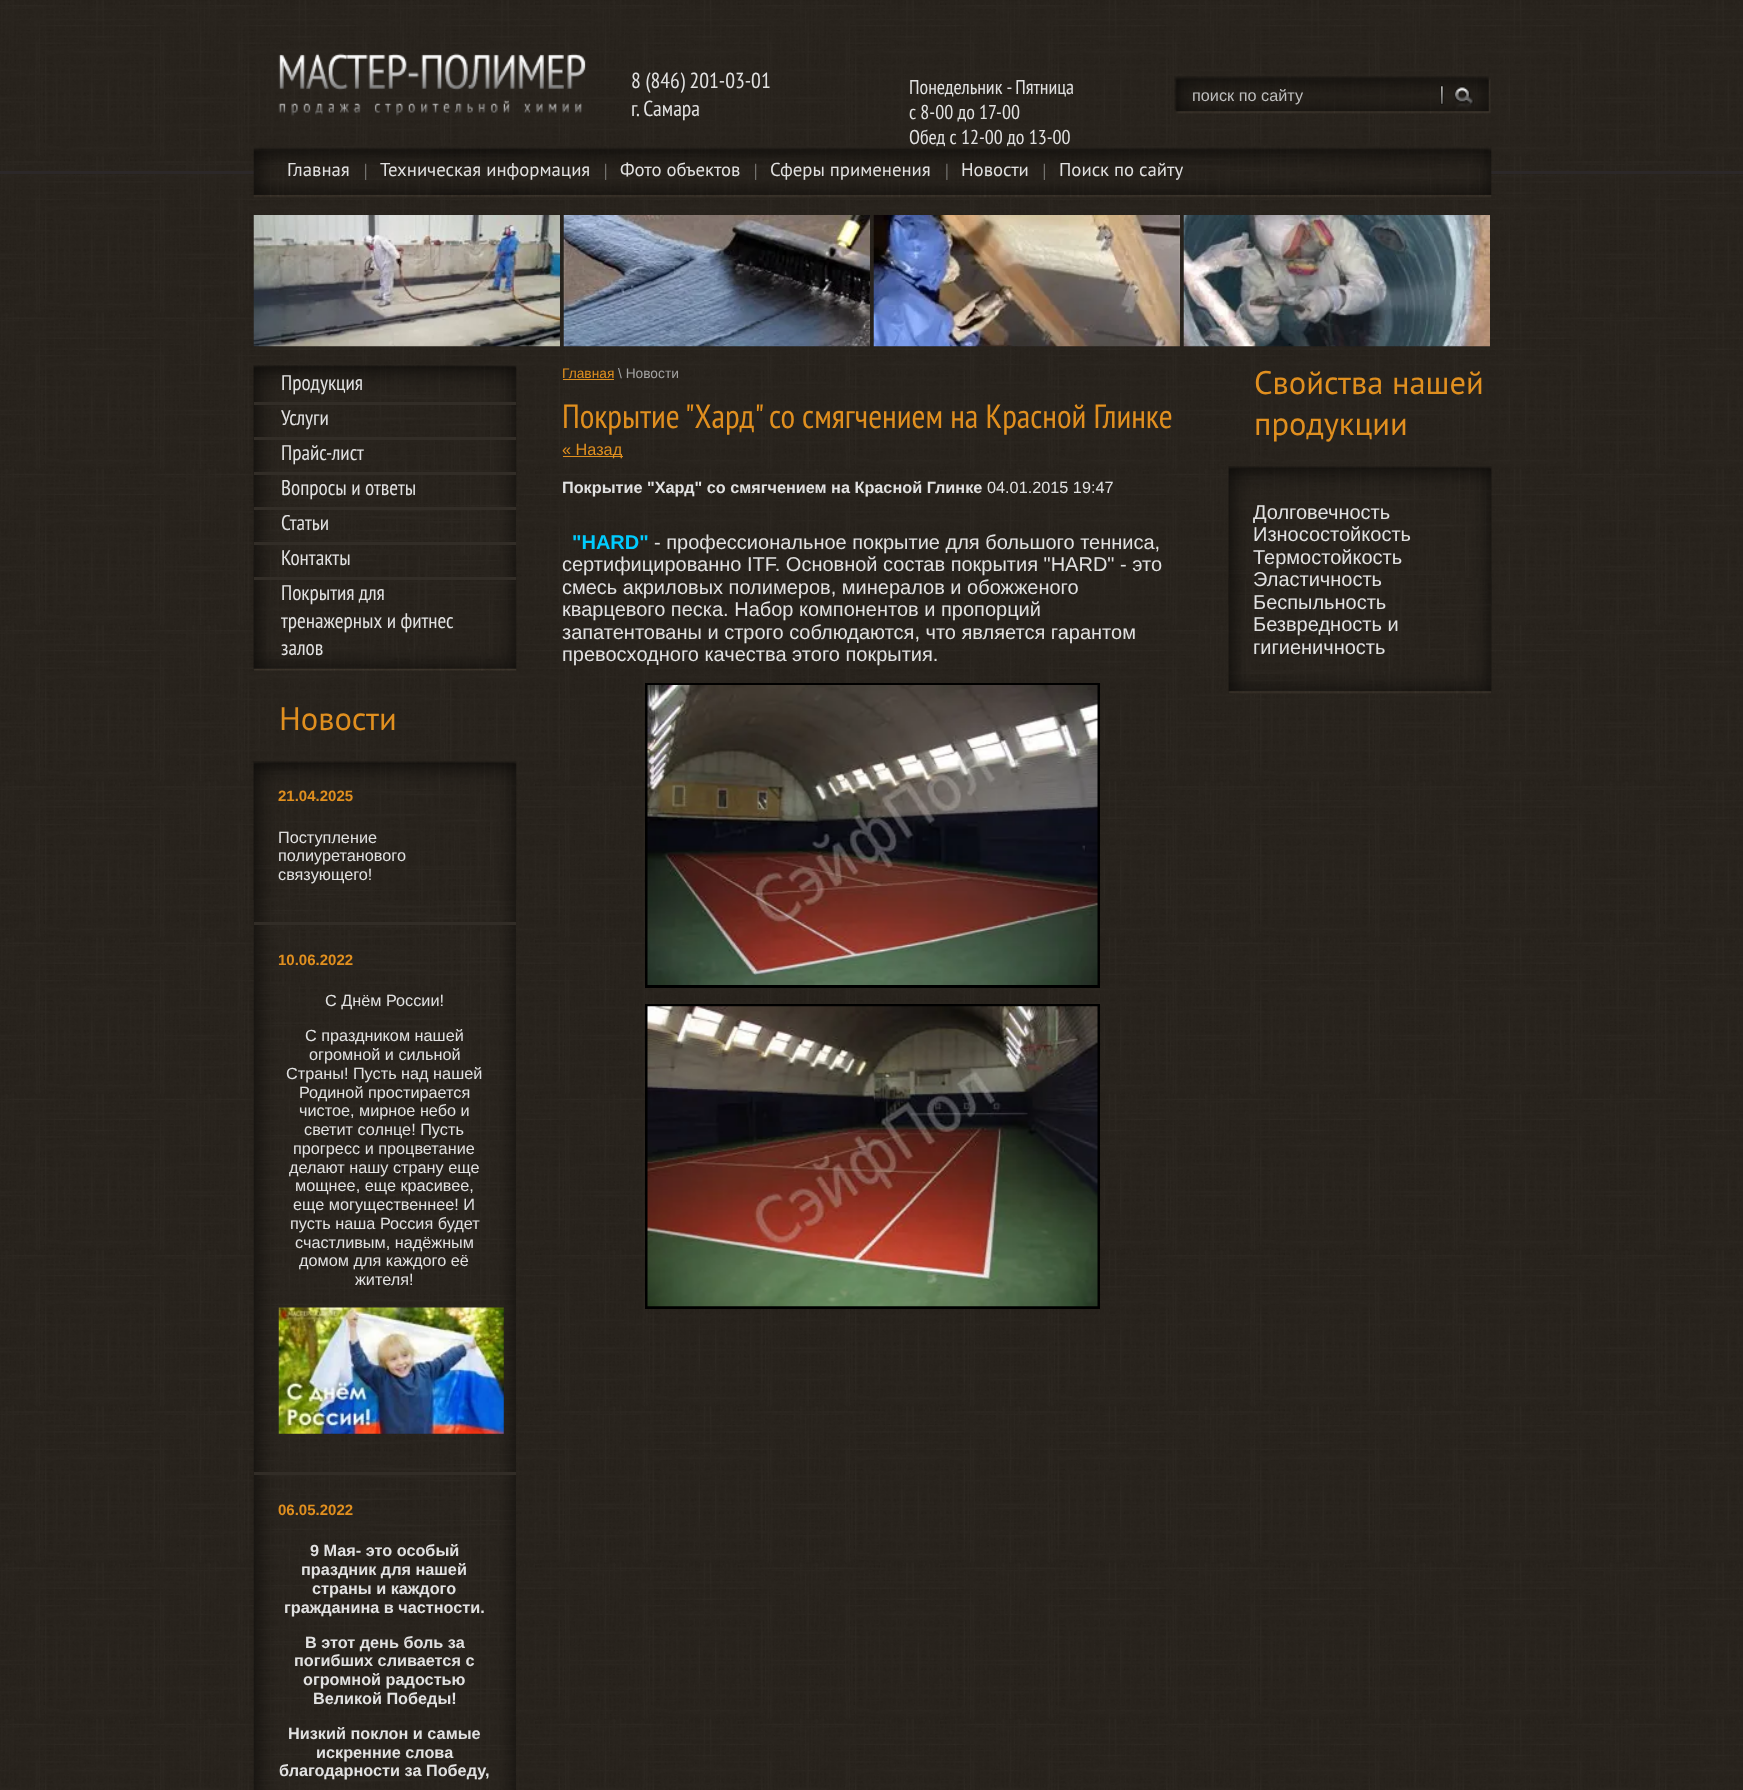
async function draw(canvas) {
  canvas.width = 1743;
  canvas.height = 1790;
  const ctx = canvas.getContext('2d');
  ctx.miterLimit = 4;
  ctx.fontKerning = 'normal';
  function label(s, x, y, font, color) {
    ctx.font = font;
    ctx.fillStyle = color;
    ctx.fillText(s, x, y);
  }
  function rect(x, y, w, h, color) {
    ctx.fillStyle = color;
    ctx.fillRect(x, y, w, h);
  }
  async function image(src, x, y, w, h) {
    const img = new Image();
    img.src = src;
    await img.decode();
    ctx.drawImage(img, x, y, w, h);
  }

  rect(0, 0, 1743, 1790, '#fff');
  await image('assets/img1.png', 0, 0, 1743, 1790);
  await image('assets/img2.png', 278, 53, 308, 63);
  label('8 (846) 201-03-01', 631, 88, '21.75px PT Sans Narrow', '#e1e1e1');
  label('г. Самара', 631, 116, '21.75px PT Sans Narrow', '#e1e1e1');
  label('Понедельник - Пятница', 909, 94, '20px PT Sans Narrow', '#e1e1e1');
  label('с 8-00 до 17-00', 909, 119, '20px PT Sans Narrow', '#e1e1e1');
  label('Обед с 12-00 до 13-00', 909, 144, '20px PT Sans Narrow', '#e1e1e1');
  await image('assets/img3.png', 1174, 76, 317, 38);
  label('поиск по сайту', 1192, 101, '16.25px Liberation Sans', '#bebebe');
  rect(0, 171, 1743, 3, '#2c2829');
  await image('assets/img4.png', 253, 146, 1239, 52);
  label('Главная', 287, 176, '18.75px PT Sans', '#e1e1e1');
  await image('assets/img5.png', 365, 163, 2, 17);
  label('Техническая информация', 380, 176, '18.75px PT Sans', '#e1e1e1');
  await image('assets/img6.png', 605, 163, 2, 17);
  label('Фото объектов', 620, 176, '18.75px PT Sans', '#e1e1e1');
  await image('assets/img7.png', 755, 163, 2, 17);
  label('Сферы применения', 770, 176, '18.75px PT Sans', '#e1e1e1');
  await image('assets/img8.png', 946, 163, 2, 17);
  label('Новости', 961, 176, '18.75px PT Sans', '#e1e1e1');
  await image('assets/img9.png', 1043, 163, 2, 17);
  label('Поиск по сайту', 1059, 176, '18.75px PT Sans', '#e1e1e1');
  await image('assets/img10.png', 253, 215, 307, 132);
  await image('assets/img11.png', 563, 215, 307, 132);
  await image('assets/img12.png', 873, 215, 307, 132);
  await image('assets/img13.png', 1183, 215, 307, 132);
  await image('assets/img14.png', 253, 365, 263, 306);
  await image('assets/img15.png', 253, 365, 264, 138);
  await image('assets/img16.png', 253, 555, 264, 116);
  label('Продукция', 281, 390, '21.25px "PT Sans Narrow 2"', '#e1e1e1');
  rect(254, 402, 262, 3, '#322d27');
  label('Услуги', 281, 425, '21.25px "PT Sans Narrow 2"', '#e1e1e1');
  rect(254, 437, 262, 3, '#322d27');
  label('Прайс-лист', 281, 460, '21.25px "PT Sans Narrow 2"', '#e1e1e1');
  rect(254, 472, 262, 3, '#322d27');
  label('Вопросы и ответы', 281, 495, '21.25px "PT Sans Narrow 2"', '#e1e1e1');
  rect(254, 507, 262, 3, '#322d27');
  label('Статьи', 281, 530, '21.25px "PT Sans Narrow 2"', '#e1e1e1');
  rect(254, 542, 262, 3, '#322d27');
  label('Контакты', 281, 565, '21.25px "PT Sans Narrow 2"', '#e1e1e1');
  rect(254, 577, 262, 3, '#322d27');
  label('Покрытия для', 281, 600, '21.25px "PT Sans Narrow 2"', '#e1e1e1');
  label('тренажерных и фитнес', 281, 628, '21.25px "PT Sans Narrow 2"', '#e1e1e1');
  label('залов', 281, 655, '21.25px "PT Sans Narrow 2"', '#e1e1e1');
  label('Новости', 279, 730, '32.5px PT Sans', '#e08f1f');
  await image('assets/img17.png', 253, 761, 263, 1029);
  await image('assets/img18.png', 253, 761, 264, 139);
  rect(254, 922, 262, 3, '#322d27');
  label('21.04.2025', 278, 801, 'bold 15px Liberation Sans', '#e08f1f');
  label('Поступление', 278, 843, '16.25px Liberation Sans', '#e1e1e1');
  label('полиуретанового', 278, 861, '16.25px Liberation Sans', '#e1e1e1');
  label('связующего!', 278, 880, '16.25px Liberation Sans', '#e1e1e1');
  rect(254, 1472, 262, 3, '#322d27');
  label('10.06.2022', 278, 965, 'bold 15px Liberation Sans', '#e08f1f');
  label('С Днём России!', 325, 1006, '16.25px Liberation Sans', '#e1e1e1');
  label('С праздником нашей', 305, 1041, '16.25px Liberation Sans', '#e1e1e1');
  label('огромной и сильной', 309, 1060, '16.25px Liberation Sans', '#e1e1e1');
  label('Страны! Пусть над нашей', 286, 1079, '16.25px Liberation Sans', '#e1e1e1');
  label('Родиной простирается', 299, 1098, '16.25px Liberation Sans', '#e1e1e1');
  label('чистое, мирное небо и', 299, 1116, '16.25px Liberation Sans', '#e1e1e1');
  label('светит солнце! Пусть', 304, 1135, '16.25px Liberation Sans', '#e1e1e1');
  label('прогресс и процветание', 293, 1154, '16.25px Liberation Sans', '#e1e1e1');
  label('делают нашу страну еще', 289, 1173, '16.25px Liberation Sans', '#e1e1e1');
  label('мощнее, еще красивее,', 295, 1191, '16.25px Liberation Sans', '#e1e1e1');
  label('еще могущественнее! И', 293, 1210, '16.25px Liberation Sans', '#e1e1e1');
  label('пусть наша Россия будет', 290, 1229, '16.25px Liberation Sans', '#e1e1e1');
  label('счастливым, надёжным', 295, 1248, '16.25px Liberation Sans', '#e1e1e1');
  label('домом для каждого её', 299, 1266, '16.25px Liberation Sans', '#e1e1e1');
  label('жителя!', 355, 1285, '16.25px Liberation Sans', '#e1e1e1');
  await image('assets/img19.png', 278, 1307, 226, 127);
  label('06.05.2022', 278, 1515, 'bold 15px Liberation Sans', '#e08f1f');
  label('9 Мая- это особый', 310, 1556, 'bold 16.25px Liberation Sans', '#e1e1e1');
  label('праздник для нашей', 301, 1575, 'bold 16.25px Liberation Sans', '#e1e1e1');
  label('страны и каждого', 312, 1594, 'bold 16.25px Liberation Sans', '#e1e1e1');
  label('гражданина в частности.', 284, 1613, 'bold 16.25px Liberation Sans', '#e1e1e1');
  label('В этот день боль за', 305, 1648, 'bold 16.25px Liberation Sans', '#e1e1e1');
  label('погибших сливается с', 294, 1666, 'bold 16.25px Liberation Sans', '#e1e1e1');
  label('огромной радостью', 303, 1685, 'bold 16.25px Liberation Sans', '#e1e1e1');
  label('Великой Победы!', 313, 1704, 'bold 16.25px Liberation Sans', '#e1e1e1');
  label('Низкий поклон и самые', 288, 1739, 'bold 16.25px Liberation Sans', '#e1e1e1');
  label('искренние слова', 316, 1758, 'bold 16.25px Liberation Sans', '#e1e1e1');
  label('благодарности за Победу,', 279, 1776, 'bold 16.25px Liberation Sans', '#e1e1e1');
  rect(562, 390, 609, 3, '#28231d');
  label('Главная', 562, 378, '13.75px Liberation Sans', '#e08f1f');
  rect(563, 379, 51, 1, '#e08f1f');
  label('\\ Новости', 618, 378, '13.75px Liberation Sans', '#a3a3a3');
  label('Покрытие "Хард" со смягчением на Красной Глинке', 562, 428, '33.75px "PT Sans Narrow 2"', '#e08f1f');
  rect(563, 456, 60, 1, '#e08f1f');
  label('« Назад', 562, 455, '16.25px Liberation Sans', '#e08f1f');
  label('Покрытие "Хард" со смягчением на Красной Глинке', 562, 493, 'bold 16.25px Liberation Sans', '#e1e1e1');
  label('04.01.2015 19:47', 987, 493, '16.25px Liberation Sans', '#e1e1e1');
  label('"HARD"', 572, 549, 'bold 20px Liberation Sans', '#0cf');
  label('- профессиональное покрытие для большого тенниса,', 654, 549, '20px Liberation Sans', '#e1e1e1');
  label('сертифицированно ITF. Основной состав покрытия "HARD" - это', 562, 571, '20px Liberation Sans', '#e1e1e1');
  label('смесь акриловых полимеров, минералов и обожженого', 562, 594, '20px Liberation Sans', '#e1e1e1');
  label('кварцевого песка. Набор компонентов и пропорций', 562, 616, '20px Liberation Sans', '#e1e1e1');
  label('запатентованы и строго соблюдаются, что является гарантом', 562, 639, '20px Liberation Sans', '#e1e1e1');
  label('превосходного качества этого покрытия.', 562, 661, '20px Liberation Sans', '#e1e1e1');
  ctx.strokeStyle = '#000';
  ctx.lineWidth = 3;
  ctx.strokeRect(646.5, 684.5, 452, 302);
  await image('assets/img20.png', 647, 685, 451, 300);
  ctx.strokeRect(646.5, 1005.5, 452, 302);
  await image('assets/img21.png', 647, 1006, 451, 301);
  label('Cвойства нашей', 1254, 394, '32.5px PT Sans', '#e08f1f');
  label('продукции', 1254, 435, '32.5px PT Sans', '#e08f1f');
  await image('assets/img22.png', 1228, 466, 264, 228);
  await image('assets/img23.png', 1228, 466, 264, 139);
  await image('assets/img24.png', 1228, 578, 264, 116);
  label('Долговечность', 1253, 519, '20px Liberation Sans', '#e1e1e1');
  label('Износостойкость', 1253, 541, '20px Liberation Sans', '#e1e1e1');
  label('Термостойкость', 1253, 564, '20px Liberation Sans', '#e1e1e1');
  label('Эластичность', 1253, 586, '20px Liberation Sans', '#e1e1e1');
  label('Беспыльность', 1253, 609, '20px Liberation Sans', '#e1e1e1');
  label('Безвредность и', 1253, 631, '20px Liberation Sans', '#e1e1e1');
  label('гигиеничность', 1253, 654, '20px Liberation Sans', '#e1e1e1');
}

draw(document.querySelector('canvas'));
